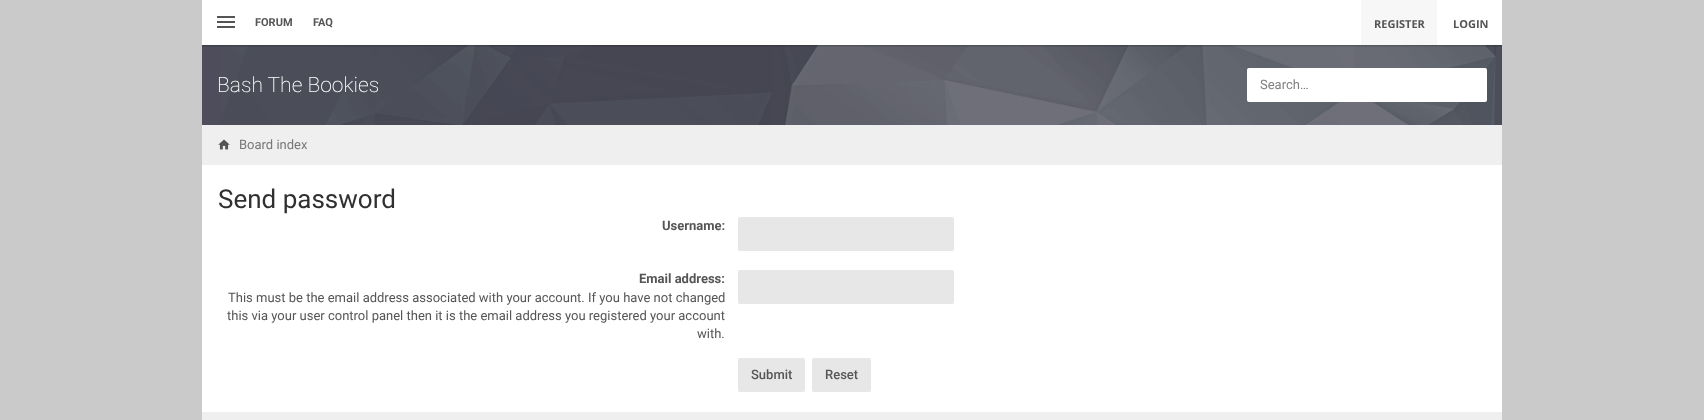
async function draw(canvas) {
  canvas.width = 1704;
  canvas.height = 420;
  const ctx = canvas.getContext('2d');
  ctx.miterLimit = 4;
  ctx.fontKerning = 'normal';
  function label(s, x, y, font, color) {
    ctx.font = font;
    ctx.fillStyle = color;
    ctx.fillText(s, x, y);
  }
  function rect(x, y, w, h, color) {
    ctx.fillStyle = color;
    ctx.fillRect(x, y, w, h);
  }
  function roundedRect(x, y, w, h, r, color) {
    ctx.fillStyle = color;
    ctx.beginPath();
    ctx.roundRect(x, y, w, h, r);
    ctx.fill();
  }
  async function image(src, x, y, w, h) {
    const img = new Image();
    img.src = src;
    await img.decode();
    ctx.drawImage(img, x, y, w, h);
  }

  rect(0, 0, 1704, 420, '#cacaca');
  rect(202, 45, 1300, 80, '#4d4d5c');
  await image('assets/img1.png', 220, 45, 1282, 80);
  ctx.fillStyle = '#00000014';
  ctx.filter = 'blur(0.5px)';
  ctx.beginPath();
  ctx.rect(202, 2, 1300, 45);
  ctx.fill();
  ctx.filter = 'none';
  ctx.fillStyle = '#0000001a';
  ctx.filter = 'blur(0.5px)';
  ctx.beginPath();
  ctx.rect(202, 1, 1300, 45);
  ctx.fill();
  ctx.filter = 'none';
  rect(202, 0, 1300, 45, '#fff');
  rect(217, 16, 18, 2, '#555');
  rect(217, 21, 18, 2, '#555');
  rect(217, 26, 18, 2, '#555');
  label('FORUM', 255, 26, 'bold 11px Roboto', '#555');
  label('FAQ', 313, 26, 'bold 11px Roboto', '#555');
  rect(1361, 0, 76, 45, '#f7f7f7');
  label('REGISTER', 1374, 28, 'bold 11px Open Sans', '#555');
  label('LOGIN', 1453, 28, 'bold 11px Open Sans', '#555');
  label('Bash The Bookies', 217, 92, '200 21px Roboto', '#fff');
  roundedRect(1247, 68, 240, 34, 2, '#fff');
  label('Search…', 1260, 89, '13px Roboto', '#808080');
  rect(202, 165, 1300, 247, '#fff');
  rect(202, 125, 1300, 40, '#efefef');
  await image('assets/img2.png', 218, 139, 12, 11);
  label('Board index', 239, 149, '13px Roboto', '#777');
  label('Send password', 218, 208, '26px Roboto', '#303030');
  label('Username:', 662, 230, 'bold 13px Roboto', '#555');
  roundedRect(738, 217, 216, 34, 2, '#e7e7e7');
  label('Email address:', 639, 283, 'bold 13px Roboto', '#555');
  label('This must be the email address associated with your account. If you have not changed', 228, 302, '13px Roboto', '#555');
  label('this via your user control panel then it is the email address you registered your account', 227, 320, '13px Roboto', '#555');
  label('with.', 697, 338, '13px Roboto', '#555');
  roundedRect(738, 270, 216, 34, 2, '#e7e7e7');
  roundedRect(738, 358, 67, 34, 2, '#e7e7e7');
  label('Submit', 751, 379, '500 13px Roboto', '#555');
  roundedRect(812, 358, 59, 34, 2, '#e7e7e7');
  label('Reset', 825, 379, '500 13px Roboto', '#555');
  rect(202, 412, 1300, 8, '#efefef');
}

draw(document.querySelector('canvas'));
